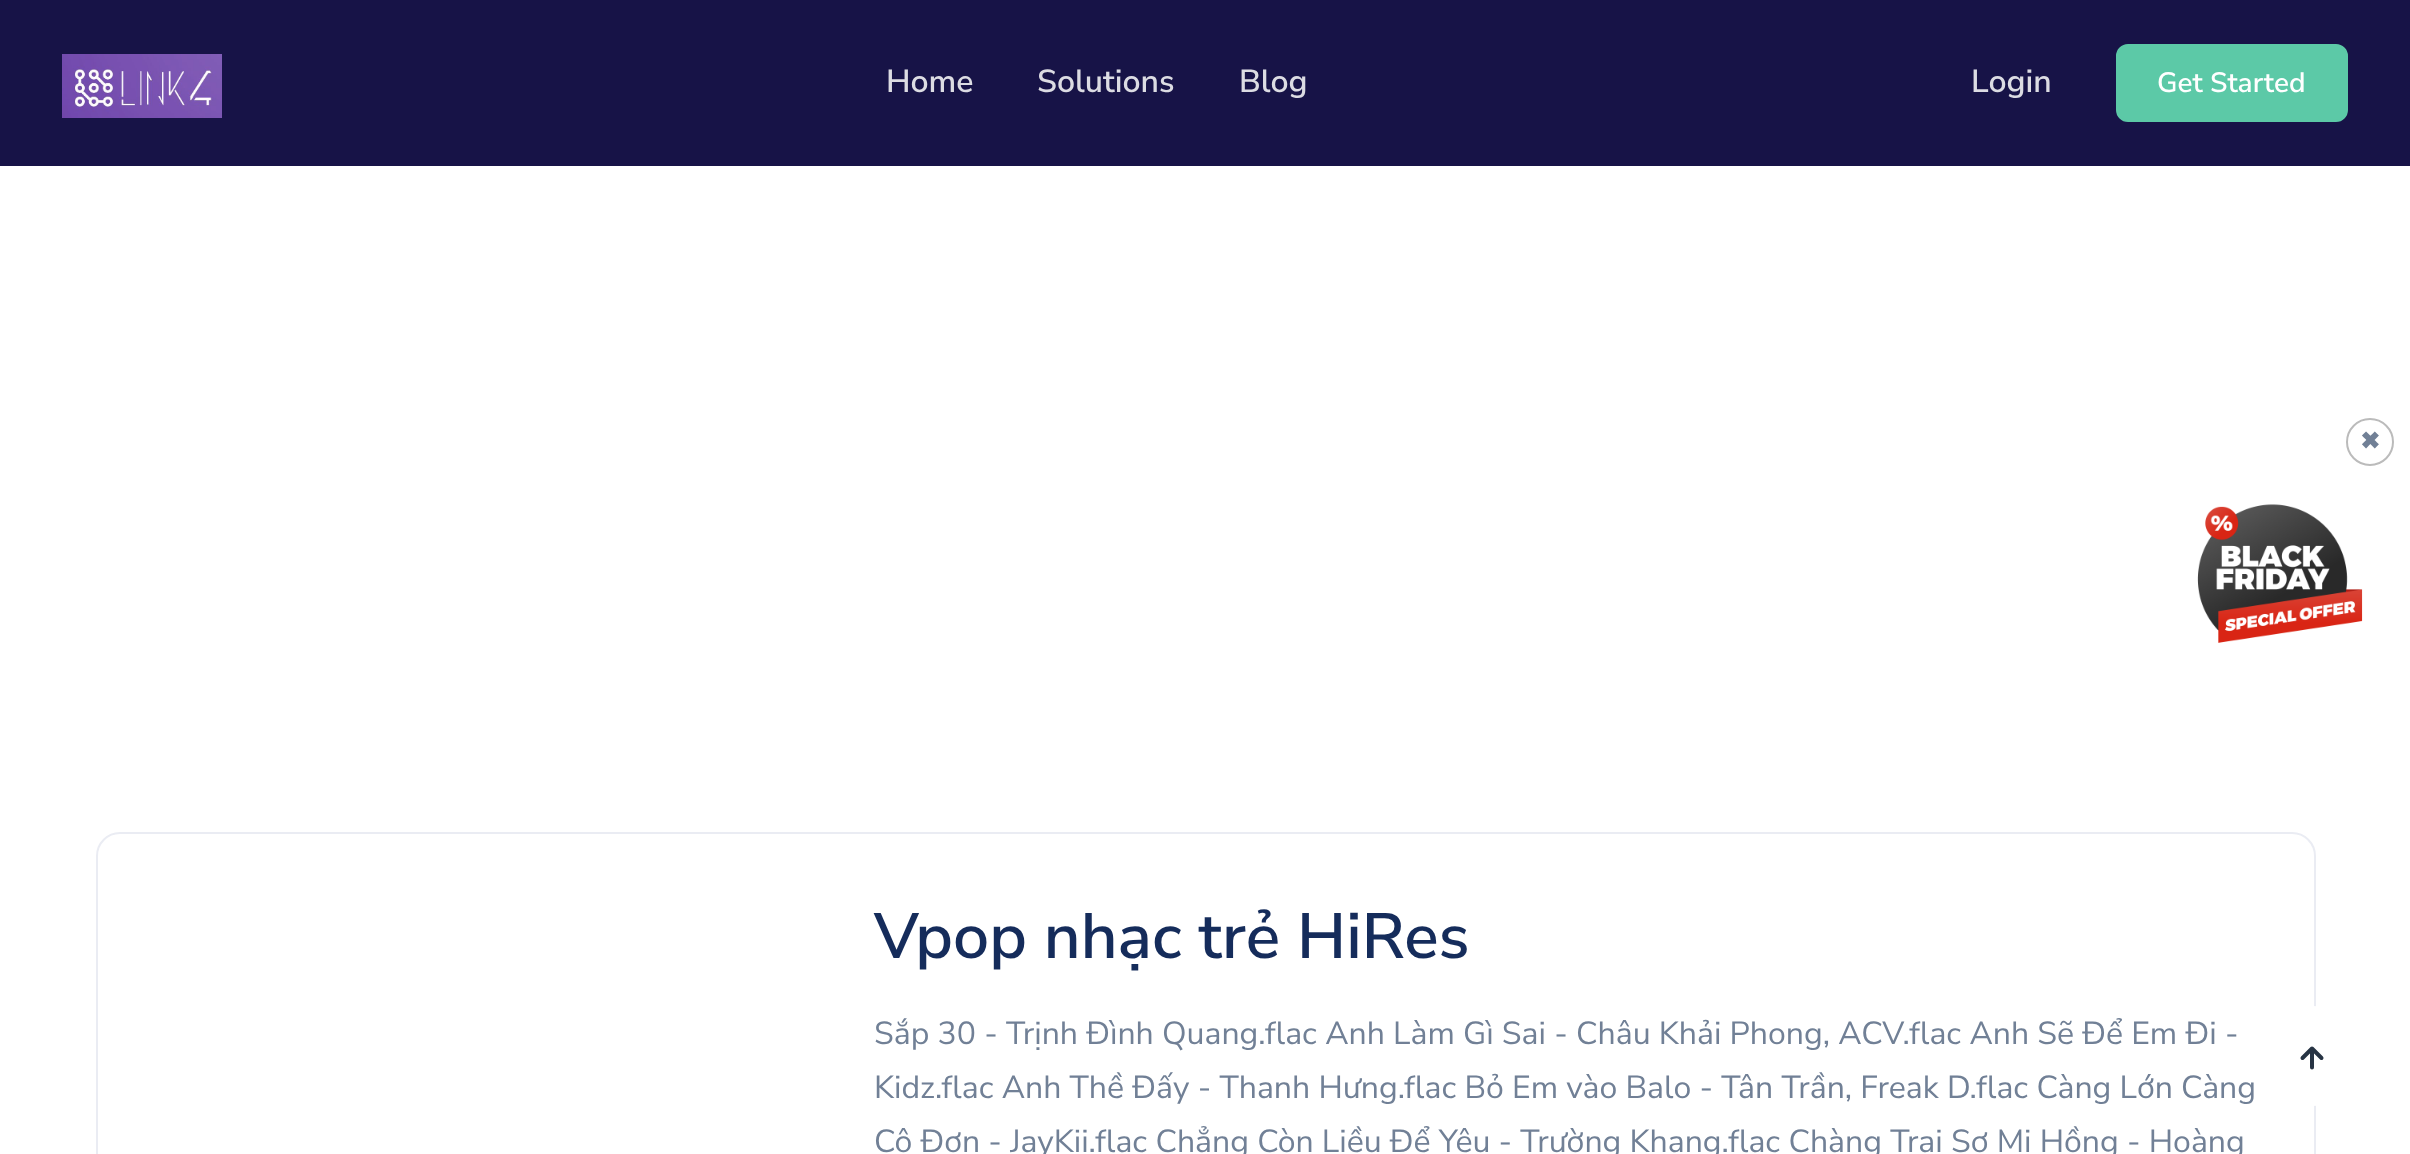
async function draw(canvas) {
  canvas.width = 2410;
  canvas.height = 1154;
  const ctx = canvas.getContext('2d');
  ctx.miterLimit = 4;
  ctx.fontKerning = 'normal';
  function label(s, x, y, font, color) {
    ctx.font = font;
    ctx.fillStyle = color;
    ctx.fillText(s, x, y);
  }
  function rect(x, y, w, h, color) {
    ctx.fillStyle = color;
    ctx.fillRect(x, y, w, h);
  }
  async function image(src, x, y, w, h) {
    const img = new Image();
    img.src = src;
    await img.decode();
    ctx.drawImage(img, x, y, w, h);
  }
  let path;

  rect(0, 0, 2410, 1154, '#fff');
  rect(0, 0, 2410, 166, '#171347');
  await image('assets/img1.png', 62, 54, 160, 64);
  label('Home', 886, 92, '600 32px Nunito Sans', '#dcdce3');
  label('Solutions', 1037, 92, '600 32px Nunito Sans', '#dcdce3');
  label('Blog', 1239, 92, '600 32px Nunito Sans', '#dcdce3');
  label('Login', 1971, 92, '600 32px Nunito Sans', '#dcdce3');
  ctx.fillStyle = '#5cc9a7';
  ctx.beginPath();
  ctx.roundRect(2117, 45, 230, 76, 11);
  ctx.fill();
  ctx.strokeStyle = '#5cc9a7';
  ctx.lineWidth = 2;
  ctx.stroke();
  label('Get Started', 2157, 92, '600 28px Nunito Sans', '#fff');
  ctx.beginPath();
  ctx.arc(2370, 442, 23, 0, 2 * Math.PI);
  ctx.strokeStyle = '#bbb';
  ctx.stroke();
  label('✖', 2360, 449, 'bold 24px DejaVu Sans', '#718096');
  await image('assets/img2.png', 2197, 504, 166, 139);
  ctx.beginPath();
  ctx.roundRect(97, 833, 2218, 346, 23);
  ctx.strokeStyle = '#eaecf3';
  ctx.stroke();
  label('Vpop nhạc trẻ HiRes', 874, 958, '600 64px Nunito Sans', '#152c5b');
  label('Sắp 30 - Trịnh Đình Quang.flac Anh Làm Gì Sai - Châu Khải Phong, ACV.flac Anh Sẽ Để Em Đi -', 874, 1044, '32px Nunito Sans', '#718096');
  label('Kidz.flac Anh Thề Đấy - Thanh Hưng.flac Bỏ Em vào Balo - Tân Trần, Freak D.flac Càng Lớn Càng', 874, 1098, '32px Nunito Sans', '#718096');
  label('Cô Đơn - JayKii.flac Chẳng Còn Liều Để Yêu - Trường Khang.flac Chàng Trai Sơ Mi Hồng - Hoàng', 874, 1152, '32px Nunito Sans', '#718096');
  ctx.fillStyle = '#fff';
  ctx.beginPath();
  ctx.arc(2312, 1056, 49, 0, 2 * Math.PI);
  ctx.fill();
  ctx.strokeStyle = '#fff';
  ctx.stroke();
  path = new Path2D('M2312 1067.5V1048.5M2302.5 1058L2312 1048.5L2321.5 1058');
  ctx.strokeStyle = '#273444';
  ctx.lineWidth = 4;
  ctx.lineCap = 'round';
  ctx.lineJoin = 'round';
  ctx.stroke(path);
}

draw(document.querySelector('canvas'));
